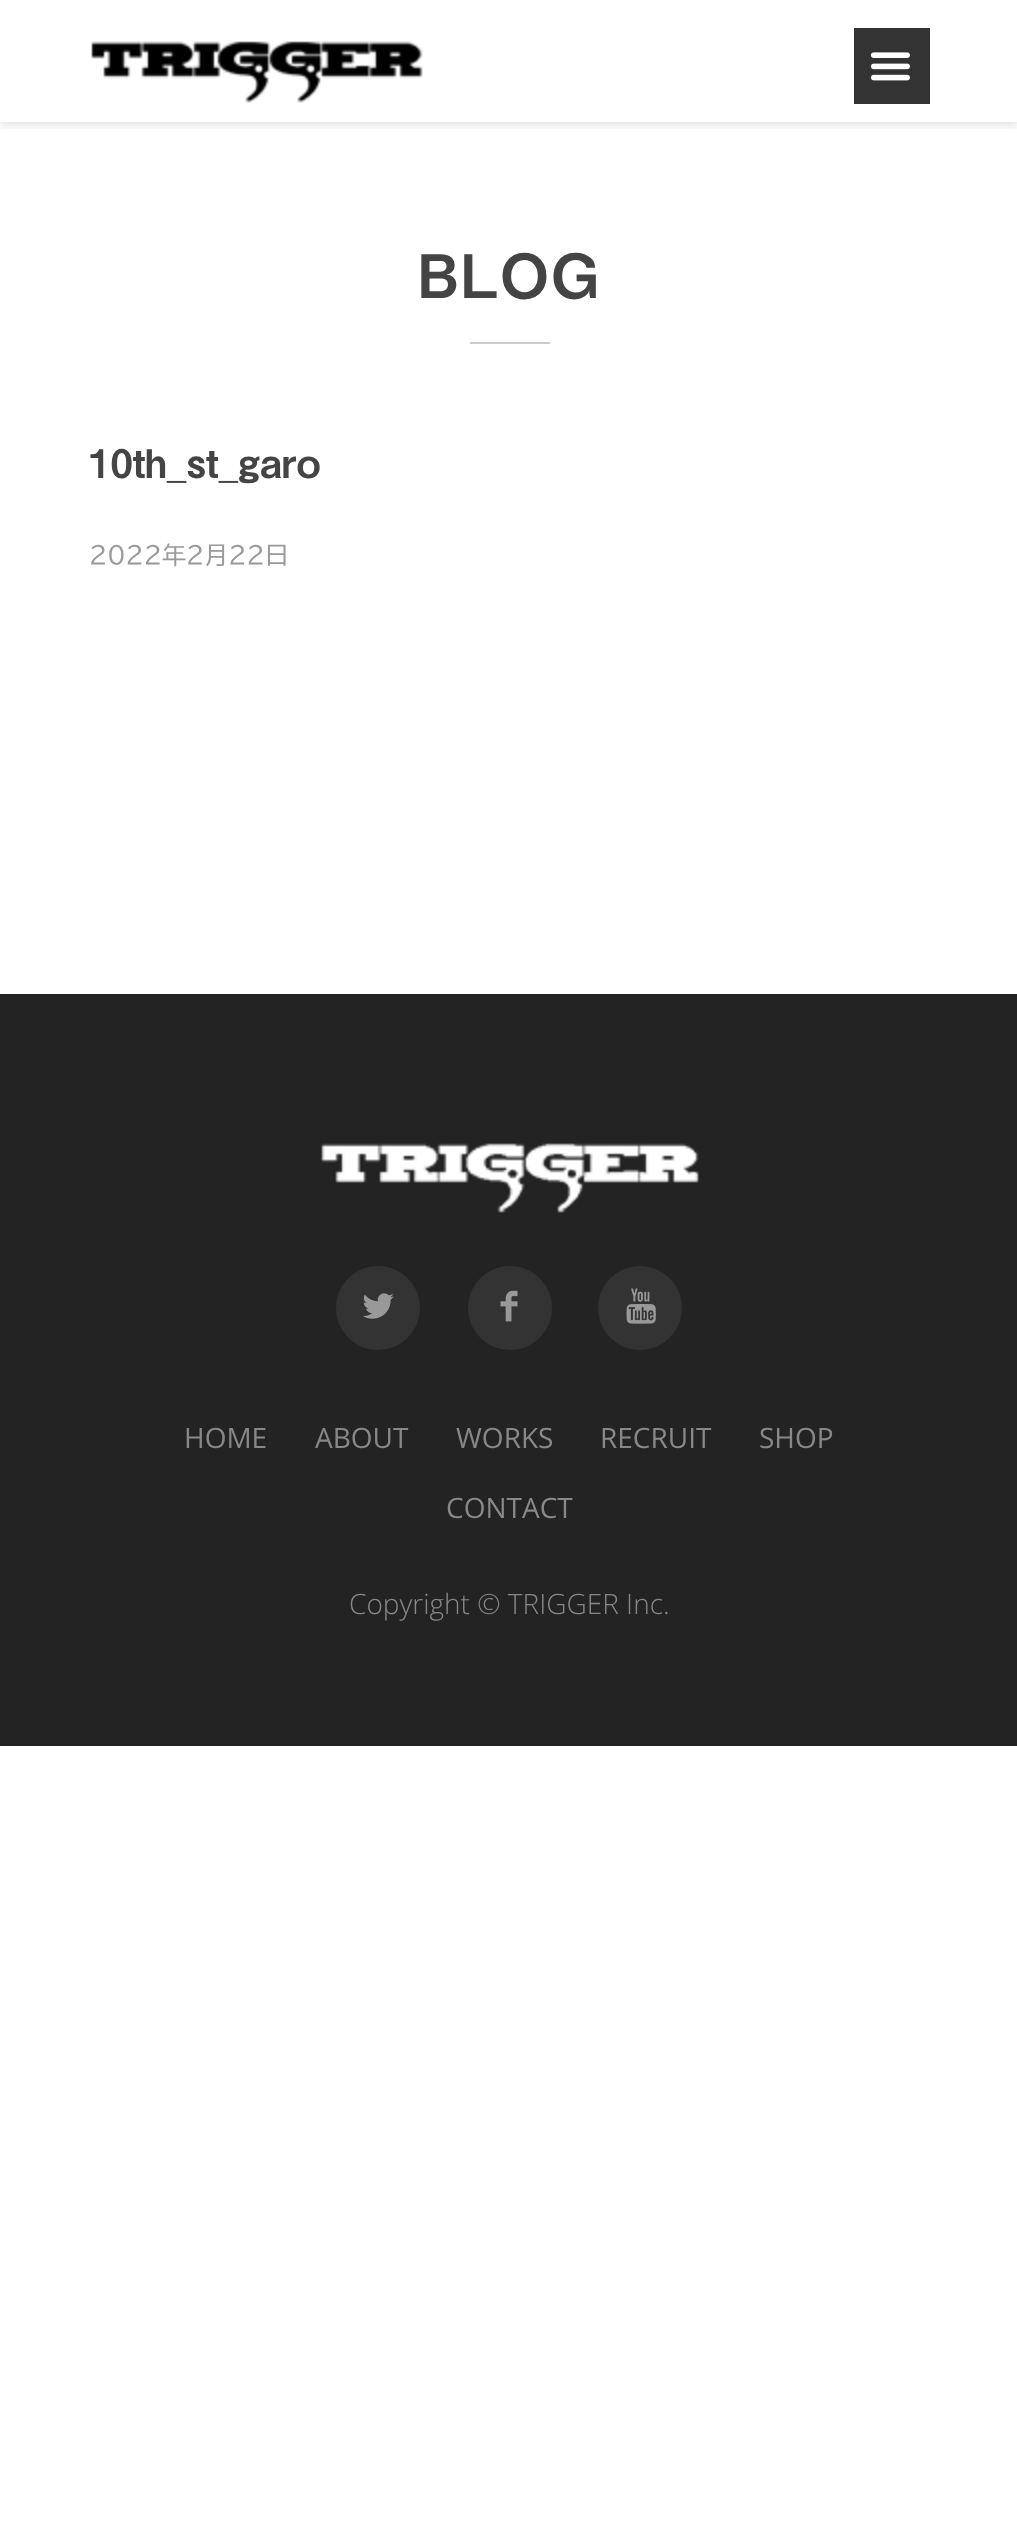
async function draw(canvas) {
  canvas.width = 1017;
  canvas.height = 2525;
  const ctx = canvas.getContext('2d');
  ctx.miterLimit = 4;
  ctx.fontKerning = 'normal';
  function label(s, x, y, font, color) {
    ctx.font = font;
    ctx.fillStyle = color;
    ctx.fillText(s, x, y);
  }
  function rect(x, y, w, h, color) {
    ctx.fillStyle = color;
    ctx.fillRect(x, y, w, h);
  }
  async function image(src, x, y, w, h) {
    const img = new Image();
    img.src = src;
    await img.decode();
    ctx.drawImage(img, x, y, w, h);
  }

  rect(0, 0, 1017, 2525, '#fff');
  ctx.save();
  ctx.beginPath();
  ctx.rect(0, 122, 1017, 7);
  ctx.clip();
  ctx.fillStyle = '#0000001a';
  ctx.filter = 'blur(4px)';
  ctx.beginPath();
  ctx.rect(0, 4, 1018, 122);
  ctx.fill();
  ctx.filter = 'none';
  ctx.restore();
  await image('assets/img1.png', 91, 41, 332, 62);
  rect(854, 28, 76, 76, '#333');
  await image('assets/img2.png', 870, 52, 40, 29);
  ctx.letterSpacing = '2px';
  label('BLOG', 417, 298, '600 60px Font', '#444');
  rect(470, 342, 80, 2, '#ccc');
  ctx.letterSpacing = '0px';
  label('10th_st_garo', 89, 478, '600 39.25px Font', '#444');
  label('2022年2月22日', 89, 564, '24px Font', '#999');
  rect(0, 994, 1017, 752, '#232323');
  await image('assets/img3.png', 321, 1143, 378, 70);
  ctx.fillStyle = '#333';
  ctx.beginPath();
  ctx.arc(378, 1308, 41, 0, 2 * Math.PI);
  ctx.fill();
  ctx.strokeStyle = '#333';
  ctx.lineWidth = 2;
  ctx.stroke();
  await image('assets/img4.png', 363, 1293, 31, 26);
  ctx.beginPath();
  ctx.arc(510, 1308, 41, 0, 2 * Math.PI);
  ctx.fill();
  ctx.stroke();
  await image('assets/img5.png', 500, 1290, 18, 32);
  ctx.beginPath();
  ctx.arc(640, 1308, 41, 0, 2 * Math.PI);
  ctx.fill();
  ctx.stroke();
  await image('assets/img6.png', 626, 1288, 30, 36);
  label('HOME', 184, 1448, '28px Open Sans', '#888');
  label('ABOUT', 315, 1448, '28px Open Sans', '#888');
  label('WORKS', 456, 1448, '28px Open Sans', '#888');
  label('RECRUIT', 600, 1448, '28px Open Sans', '#888');
  label('SHOP', 759, 1448, '28px Open Sans', '#888');
  label('CONTACT', 446, 1518, '28px Open Sans', '#888');
  label('Copyright © TRIGGER Inc.', 349, 1614, '300 28px Open Sans', '#888');
}

draw(document.querySelector('canvas'));
